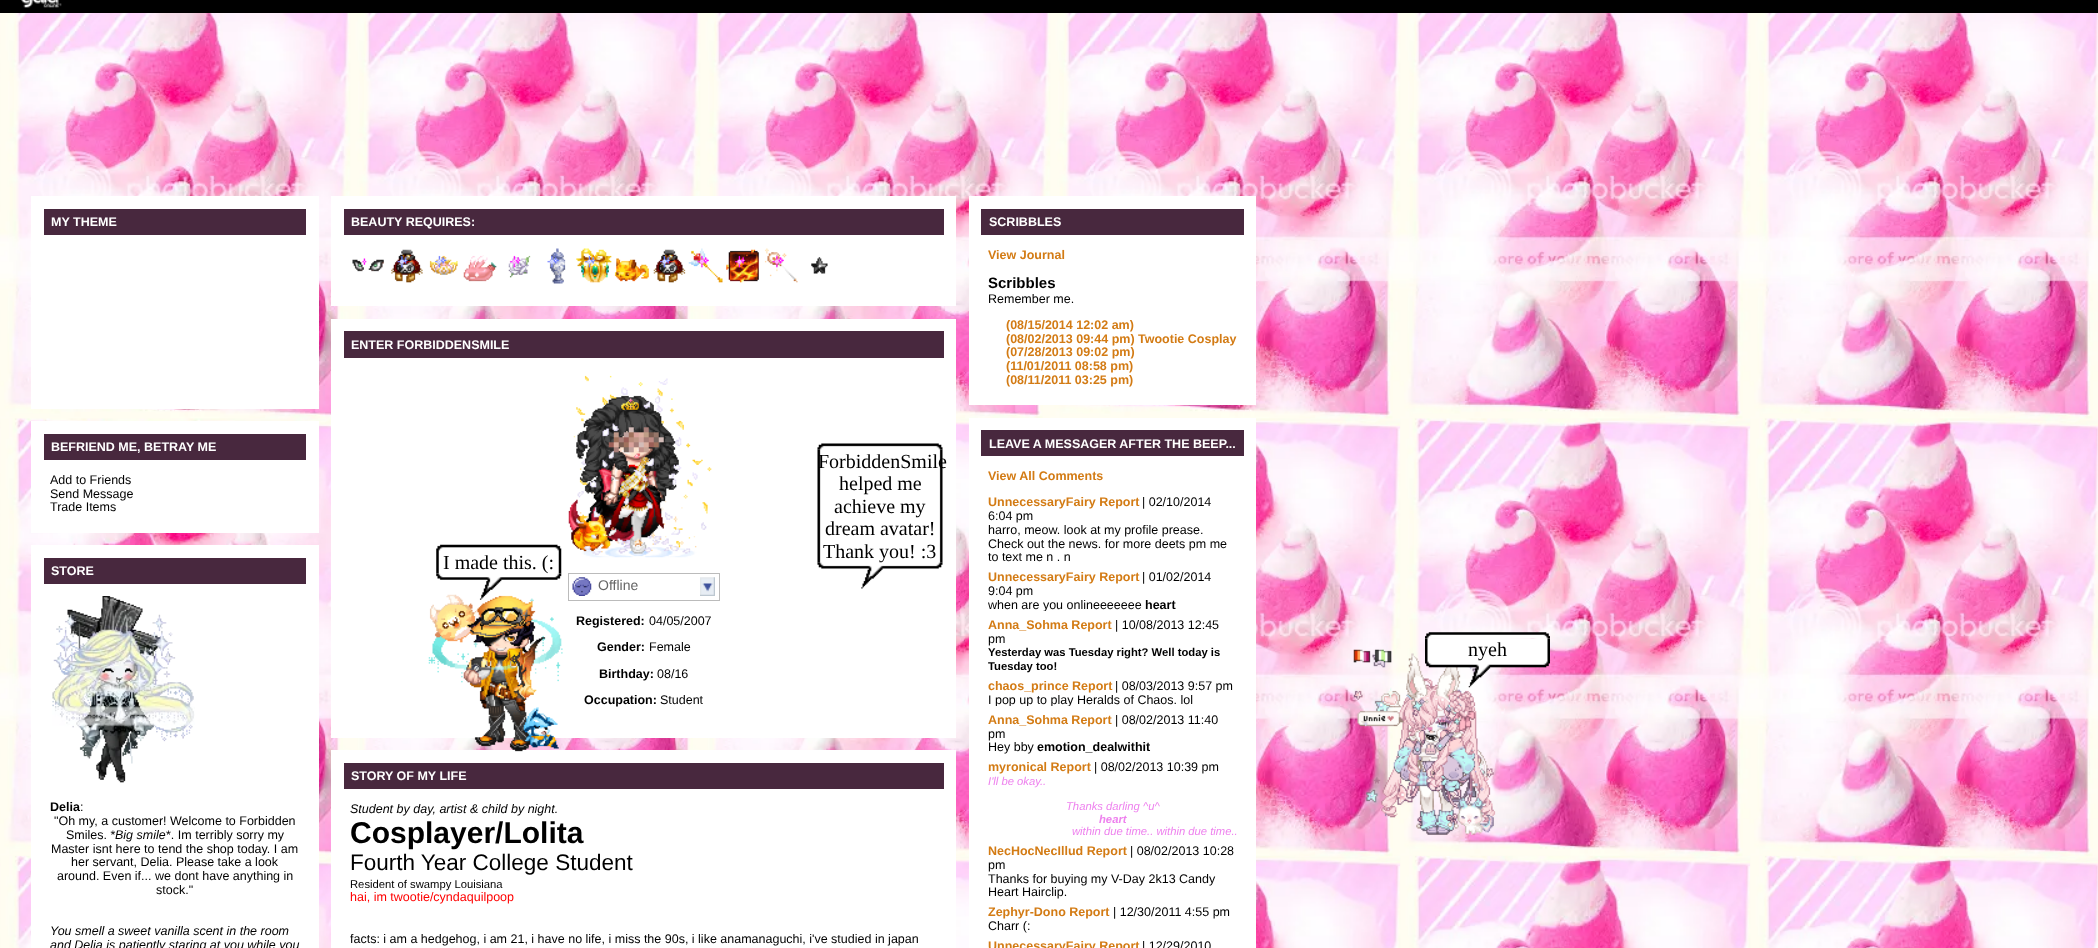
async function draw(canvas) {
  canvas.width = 2098;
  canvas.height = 948;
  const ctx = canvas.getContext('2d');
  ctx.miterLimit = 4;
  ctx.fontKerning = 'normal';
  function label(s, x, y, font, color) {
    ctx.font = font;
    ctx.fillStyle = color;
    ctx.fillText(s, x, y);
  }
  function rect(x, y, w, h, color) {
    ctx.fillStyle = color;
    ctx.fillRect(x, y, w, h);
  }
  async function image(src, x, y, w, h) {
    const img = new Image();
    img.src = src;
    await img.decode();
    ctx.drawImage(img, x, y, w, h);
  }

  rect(0, 0, 2098, 948, '#fff');
  await image('assets/img1.png', 0, 13, 2098, 935);
  rect(0, 0, 2098, 13, '#000');
  await image('assets/img2.png', 21, 0, 41, 8);
  rect(31, 196, 288, 213, '#fff');
  rect(44, 209, 262, 26, '#48283e');
  label('MY THEME', 51, 226, 'bold 12.5px Liberation Sans', '#fff');
  rect(31, 421, 288, 112, '#fff');
  rect(44, 434, 262, 26, '#48283e');
  label('BEFRIEND ME, BETRAY ME', 51, 451, 'bold 12.5px Liberation Sans', '#fff');
  label('Add to Friends', 50, 484, '12.5px Liberation Sans', '#000');
  label('Send Message', 50, 498, '12.5px Liberation Sans', '#000');
  label('Trade Items', 50, 511, '12.5px Liberation Sans', '#000');
  rect(31, 545, 288, 403, '#fff');
  rect(44, 558, 262, 26, '#48283e');
  label('STORE', 51, 575, 'bold 12.5px Liberation Sans', '#fff');
  await image('assets/img3.png', 52, 596, 143, 187);
  label('Delia', 50, 811, 'bold 12.5px Liberation Sans', '#000');
  label(':', 80, 811, '12.5px Liberation Sans', '#000');
  label('"Oh my, a customer! Welcome to Forbidden', 54, 825, '12.5px Liberation Sans', '#000');
  label('Smiles. *', 66, 839, '12.5px Liberation Sans', '#000');
  label('Big smile', 115, 839, 'italic 12.5px Liberation Sans', '#000');
  label('*. Im terribly sorry my', 166, 839, '12.5px Liberation Sans', '#000');
  label('Master isnt here to tend the shop today. I am', 51, 853, '12.5px Liberation Sans', '#000');
  label('her servant, Delia. Please take a look', 71, 866, '12.5px Liberation Sans', '#000');
  label('around. Even if... we dont have anything in', 57, 880, '12.5px Liberation Sans', '#000');
  label('stock."', 156, 894, '12.5px Liberation Sans', '#000');
  label('You smell a sweet vanilla scent in the room', 50, 935, 'italic 12.5px Liberation Sans', '#000');
  label('and Delia is patiently staring at you while you', 50, 949, 'italic 12.5px Liberation Sans', '#000');
  rect(331, 196, 625, 110, '#fff');
  rect(344, 209, 600, 26, '#48283e');
  label('BEAUTY REQUIRES:', 351, 226, 'bold 12.5px Liberation Sans', '#fff');
  await image('assets/img5.png', 352, 259, 32, 13);
  await image('assets/img4.png', 362, 258, 5, 7);
  await image('assets/img6.png', 391, 249, 32, 34);
  await image('assets/img7.png', 397, 255, 11, 13);
  await image('assets/img8.png', 429, 255, 29, 20);
  await image('assets/img9.png', 434, 255, 13, 13);
  await image('assets/img10.png', 463, 255, 34, 27);
  await image('assets/img11.png', 508, 255, 23, 23);
  await image('assets/img12.png', 509, 255, 12, 13);
  await image('assets/img13.png', 549, 248, 17, 36);
  await image('assets/img14.png', 547, 255, 12, 13);
  await image('assets/img15.png', 576, 248, 36, 35);
  await image('assets/img16.png', 584, 255, 12, 13);
  await image('assets/img17.png', 614, 258, 35, 24);
  await image('assets/img18.png', 653, 249, 33, 34);
  await image('assets/img19.png', 659, 255, 12, 13);
  await image('assets/img20.png', 688, 248, 35, 35);
  await image('assets/img21.png', 697, 255, 12, 13);
  await image('assets/img22.png', 726, 249, 33, 34);
  await image('assets/img23.png', 734, 255, 12, 13);
  await image('assets/img24.png', 764, 248, 34, 35);
  await image('assets/img25.png', 772, 255, 12, 13);
  await image('assets/img26.png', 811, 257, 17, 17);
  rect(331, 319, 625, 419, '#fff');
  rect(344, 331, 600, 27, '#48283e');
  label('ENTER FORBIDDENSMILE', 351, 349, 'bold 12.5px Liberation Sans', '#fff');
  await image('assets/img27.png', 568, 375, 144, 183);
  ctx.strokeStyle = '#bbb';
  ctx.strokeRect(568.5, 573.5, 151, 27);
  await image('assets/img28.png', 700, 577, 15, 19);
  await image('assets/img29.png', 572, 577, 20, 19);
  label('Offline', 598, 590, '14px Liberation Sans', '#666');
  label('Registered:', 576, 625, 'bold 12.5px Liberation Sans', '#000');
  label('04/05/2007', 649, 625, '12.5px Liberation Sans', '#000');
  label('Gender:', 597, 651, 'bold 12.5px Liberation Sans', '#000');
  label('Female', 649, 651, '12.5px Liberation Sans', '#000');
  label('Birthday:', 599, 678, 'bold 12.5px Liberation Sans', '#000');
  label('08/16', 657, 678, '12.5px Liberation Sans', '#000');
  label('Occupation:', 584, 704, 'bold 12.5px Liberation Sans', '#000');
  label('Student', 660, 704, '12.5px Liberation Sans', '#000');
  rect(331, 750, 625, 198, '#fff');
  rect(344, 763, 600, 26, '#48283e');
  label('STORY OF MY LIFE', 351, 780, 'bold 12.5px Liberation Sans', '#fff');
  label('Student by day, artist & child by night.', 350, 813, 'italic 12.5px Liberation Sans', '#000');
  label('Cosplayer/Lolita', 350, 843, 'bold 30px Liberation Sans', '#000');
  label('Fourth Year College Student', 350, 870, '22.5px Liberation Sans', '#000');
  label('Resident of swampy Louisiana', 350, 888, '11.25px Liberation Sans', '#000');
  label('hai, im twootie/cyndaquilpoop', 350, 901, '12.5px Liberation Sans', '#f00');
  label('facts: i am a hedgehog, i am 21, i have no life, i miss the 90s, i like anamanaguchi, i\'ve studied in japan', 350, 943, '12.5px Liberation Sans', '#000');
  rect(969, 196, 287, 209, '#fff');
  rect(981, 209, 263, 26, '#48283e');
  label('SCRIBBLES', 989, 226, 'bold 12.5px Liberation Sans', '#fff');
  label('View Journal', 988, 259, 'bold 12.5px Liberation Sans', '#d37b14');
  label('Scribbles', 988, 288, 'bold 15px Liberation Sans', '#000');
  label('Remember me.', 988, 303, '12.5px Liberation Sans', '#000');
  label('(08/15/2014 12:02 am)', 1006, 329, 'bold 12.5px Liberation Sans', '#d37b14');
  label('(08/02/2013 09:44 pm) Twootie Cosplay', 1006, 343, 'bold 12.5px Liberation Sans', '#d37b14');
  label('(07/28/2013 09:02 pm)', 1006, 356, 'bold 12.5px Liberation Sans', '#d37b14');
  label('(11/01/2011 08:58 pm)', 1006, 370, 'bold 12.5px Liberation Sans', '#d37b14');
  label('(08/11/2011 03:25 pm)', 1006, 384, 'bold 12.5px Liberation Sans', '#d37b14');
  rect(969, 418, 287, 530, '#fff');
  rect(981, 430, 263, 26, '#48283e');
  label('LEAVE A MESSAGER AFTER THE BEEP...', 989, 448, 'bold 12.5px Liberation Sans', '#fff');
  label('View All Comments', 988, 480, 'bold 12.5px Liberation Sans', '#d37b14');
  label('UnnecessaryFairy Report', 988, 506, 'bold 12.5px Liberation Sans', '#d37b14');
  label('| 02/10/2014', 1142, 506, '12.5px Liberation Sans', '#000');
  label('6:04 pm', 988, 520, '12.5px Liberation Sans', '#000');
  label('harro, meow. look at my profile prease.', 988, 534, '12.5px Liberation Sans', '#000');
  label('Check out the news. for more deets pm me', 988, 548, '12.5px Liberation Sans', '#000');
  label('to text me n . n', 988, 561, '12.5px Liberation Sans', '#000');
  label('UnnecessaryFairy Report', 988, 581, 'bold 12.5px Liberation Sans', '#d37b14');
  label('| 01/02/2014', 1142, 581, '12.5px Liberation Sans', '#000');
  label('9:04 pm', 988, 595, '12.5px Liberation Sans', '#000');
  ctx.save();
  ctx.beginPath();
  ctx.rect(988, 598, 250, 13);
  ctx.clip();
  label('when are you onlineeeeeee', 988, 609, '12.5px Liberation Sans', '#000');
  ctx.restore();
  label('heart', 1145, 609, 'bold 12.5px Liberation Sans', '#000');
  label('Anna_Sohma Report', 988, 629, 'bold 12.5px Liberation Sans', '#d37b14');
  label('| 10/08/2013 12:45', 1115, 629, '12.5px Liberation Sans', '#000');
  label('pm', 988, 643, '12.5px Liberation Sans', '#000');
  label('Yesterday was Tuesday right? Well today is', 988, 656, 'bold 11.25px Liberation Sans', '#000');
  label('Tuesday too!', 988, 670, 'bold 11.25px Liberation Sans', '#000');
  label('chaos_prince Report', 988, 690, 'bold 12.5px Liberation Sans', '#d37b14');
  label('| 08/03/2013 9:57 pm', 1115, 690, '12.5px Liberation Sans', '#000');
  ctx.save();
  ctx.beginPath();
  ctx.rect(988, 693, 250, 13);
  ctx.clip();
  label('I pop up to play Heralds of Chaos. lol', 988, 704, '12.5px Liberation Sans', '#000');
  ctx.restore();
  label('Anna_Sohma Report', 988, 724, 'bold 12.5px Liberation Sans', '#d37b14');
  label('| 08/02/2013 11:40', 1115, 724, '12.5px Liberation Sans', '#000');
  label('pm', 988, 738, '12.5px Liberation Sans', '#000');
  label('Hey bby', 988, 751, '12.5px Liberation Sans', '#000');
  label('emotion_dealwithit', 1037, 751, 'bold 12.5px Liberation Sans', '#000');
  label('myronical Report', 988, 771, 'bold 12.5px Liberation Sans', '#d37b14');
  label('| 08/02/2013 10:39 pm', 1094, 771, '12.5px Liberation Sans', '#000');
  label('I\'ll be okay..', 988, 785, 'italic 11.25px Liberation Sans', '#ee82ee');
  label('Thanks darling ^u^', 1066, 810, 'italic 11.25px Liberation Sans', '#ee82ee');
  label('heart', 1099, 823, 'italic bold 11.25px Liberation Sans', '#ee82ee');
  label('within due time.. within due time..', 1072, 835, 'italic 11.25px Liberation Sans', '#ee82ee');
  label('NecHocNecIllud Report', 988, 855, 'bold 12.5px Liberation Sans', '#d37b14');
  label('| 08/02/2013 10:28', 1130, 855, '12.5px Liberation Sans', '#000');
  label('pm', 988, 869, '12.5px Liberation Sans', '#000');
  label('Thanks for buying my V-Day 2k13 Candy', 988, 883, '12.5px Liberation Sans', '#000');
  label('Heart Hairclip.', 988, 896, '12.5px Liberation Sans', '#000');
  label('Zephyr-Dono Report', 988, 916, 'bold 12.5px Liberation Sans', '#d37b14');
  label('| 12/30/2011 4:55 pm', 1113, 916, '12.5px Liberation Sans', '#000');
  label('Charr (:', 988, 930, '12.5px Liberation Sans', '#000');
  label('UnnecessaryFairy Report', 988, 950, 'bold 12.5px Liberation Sans', '#d37b14');
  label('| 12/29/2010', 1142, 950, '12.5px Liberation Sans', '#000');
  await image('assets/img30.png', 436, 544, 126, 7);
  await image('assets/img31.png', 436, 551, 126, 23);
  await image('assets/img39.png', 428, 594, 135, 158);
  await image('assets/img32.png', 436, 573, 126, 27);
  label('I made this. (:', 443, 569, '20px Liberation Serif', '#000');
  await image('assets/img34.png', 817, 449, 126, 114);
  await image('assets/img33.png', 817, 443, 126, 7);
  label('ForbiddenSmile', 818, 468, '20px Liberation Serif', '#000');
  label('helped me', 839, 490, '20px Liberation Serif', '#000');
  label('achieve my', 834, 513, '20px Liberation Serif', '#000');
  label('dream avatar!', 825, 535, '20px Liberation Serif', '#000');
  await image('assets/img35.png', 817, 562, 126, 27);
  label('Thank you! :3', 823, 558, '20px Liberation Serif', '#000');
  await image('assets/img40.png', 1352, 649, 144, 186);
  await image('assets/img37.png', 1425, 638, 125, 23);
  await image('assets/img36.png', 1425, 632, 125, 7);
  label('nyeh', 1468, 656, '20px Liberation Serif', '#000');
  await image('assets/img38.png', 1425, 661, 125, 27);
}

draw(document.querySelector('canvas'));
